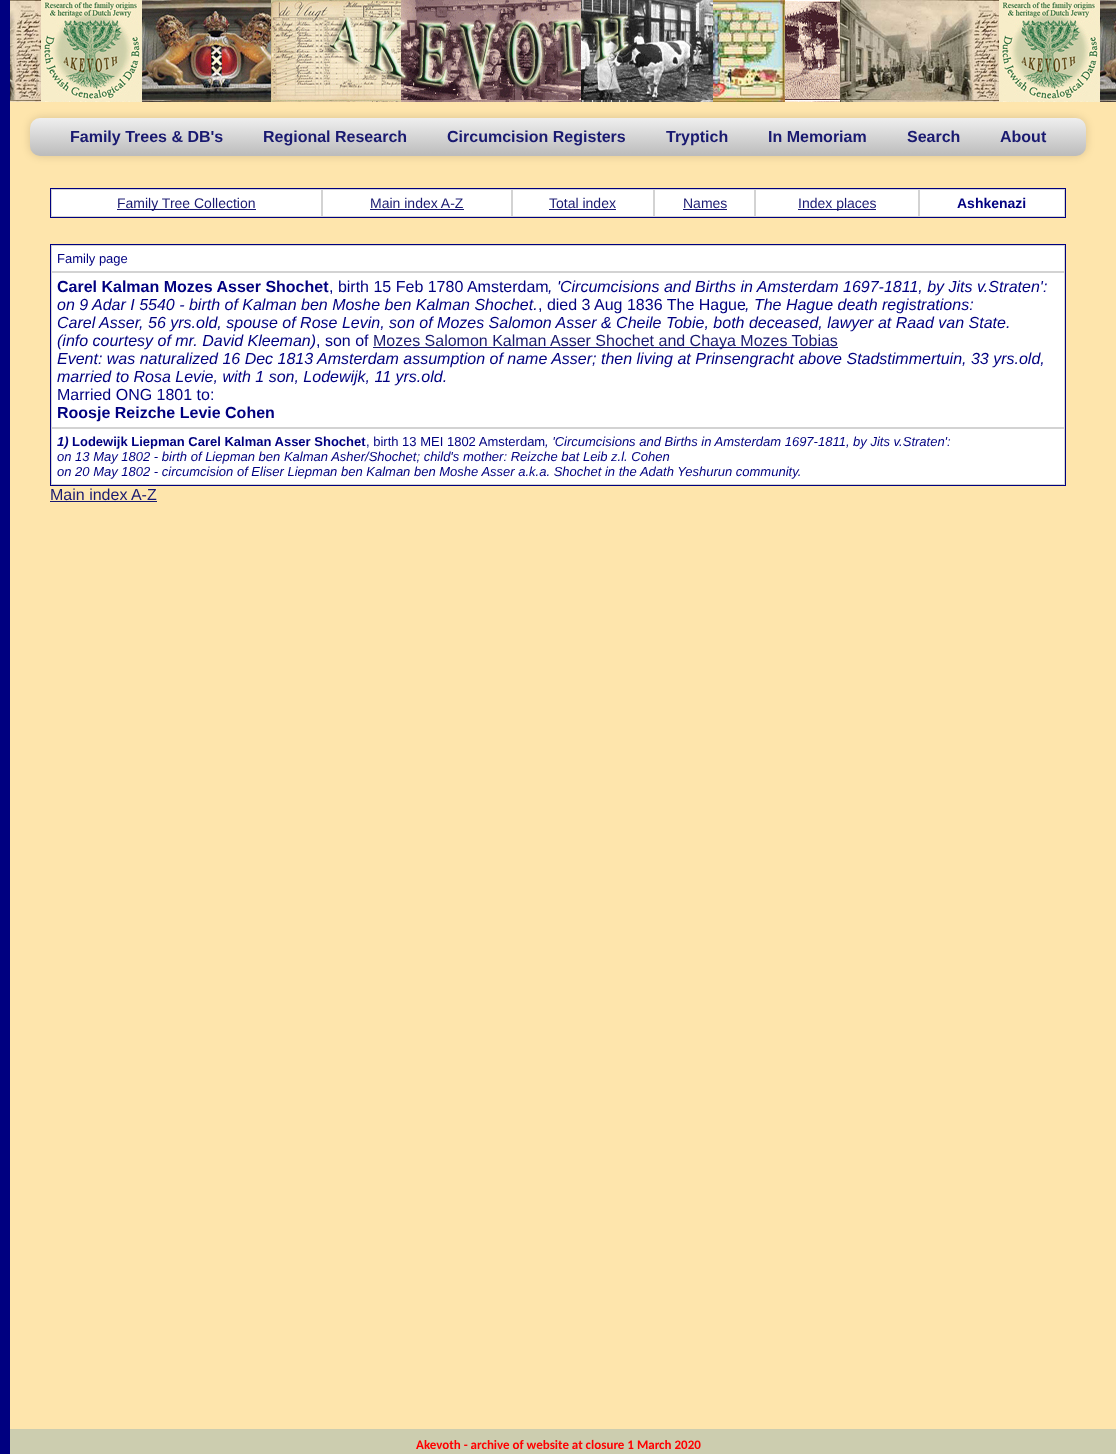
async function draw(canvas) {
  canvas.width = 1116;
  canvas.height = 1454;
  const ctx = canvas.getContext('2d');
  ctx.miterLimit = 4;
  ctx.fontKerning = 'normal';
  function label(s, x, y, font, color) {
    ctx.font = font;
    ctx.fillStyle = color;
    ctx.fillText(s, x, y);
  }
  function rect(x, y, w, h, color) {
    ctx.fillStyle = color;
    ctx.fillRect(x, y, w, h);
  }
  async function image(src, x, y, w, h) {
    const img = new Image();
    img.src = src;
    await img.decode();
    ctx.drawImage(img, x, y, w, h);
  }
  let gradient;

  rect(0, 0, 1116, 1454, '#fee5ac');
  await image('assets/img1.png', 10, 0, 1106, 102);
  ctx.fillStyle = '#00000026';
  ctx.filter = 'blur(4.5px)';
  ctx.beginPath();
  ctx.roundRect(30, 118, 1056, 38, 10);
  ctx.fill();
  ctx.filter = 'none';
  gradient = ctx.createLinearGradient(558, 118, 558, 156);
  gradient.addColorStop(0, '#efefef');
  gradient.addColorStop(1, '#bbb');
  ctx.fillStyle = gradient;
  ctx.beginPath();
  ctx.roundRect(30, 118, 1056, 38, 10);
  ctx.fill();
  label('Family Trees & DB\'s', 70, 142, 'bold 16px Liberation Sans', '#191970');
  label('Regional Research', 263, 142, 'bold 16px Liberation Sans', '#191970');
  label('Circumcision Registers', 447, 142, 'bold 16px Liberation Sans', '#191970');
  label('Tryptich', 666, 142, 'bold 16px Liberation Sans', '#191970');
  label('In Memoriam', 768, 142, 'bold 16px Liberation Sans', '#191970');
  label('Search', 907, 142, 'bold 16px Liberation Sans', '#191970');
  label('About', 1000, 142, 'bold 16px Liberation Sans', '#191970');
  rect(0, 0, 10, 1454, '#000080');
  rect(52, 190, 1012, 26, '#fff');
  ctx.strokeStyle = '#000080';
  ctx.strokeRect(50.5, 188.5, 1015, 29);
  ctx.strokeStyle = '#d3d3d3';
  ctx.strokeRect(51.5, 189.5, 270, 27);
  rect(117, 209, 139, 1, '#191970');
  label('Family Tree Collection', 117, 208, '14px Liberation Sans', '#191970');
  ctx.strokeRect(322.5, 189.5, 189, 27);
  label('Main index A-Z', 370, 208, '14px Liberation Sans', '#191970');
  rect(370, 209, 94, 1, '#191970');
  ctx.strokeRect(512.5, 189.5, 141, 27);
  label('Total index', 549, 208, '14px Liberation Sans', '#191970');
  rect(549, 209, 67, 1, '#191970');
  ctx.strokeRect(654.5, 189.5, 100, 27);
  label('Names', 683, 208, '14px Liberation Sans', '#191970');
  rect(683, 209, 44, 1, '#191970');
  ctx.strokeRect(755.5, 189.5, 163, 27);
  rect(798, 209, 78, 1, '#191970');
  label('Index places', 798, 208, '14px Liberation Sans', '#191970');
  ctx.strokeRect(919.5, 189.5, 145, 27);
  label('Ashkenazi', 957, 208, 'bold 14px Liberation Sans', '#000080');
  rect(52, 246, 1012, 238, '#fff');
  ctx.strokeStyle = '#000080';
  ctx.strokeRect(50.5, 244.5, 1015, 241);
  ctx.strokeStyle = '#d3d3d3';
  ctx.strokeRect(51.5, 245.5, 1013, 26);
  label('Family page', 57, 263, '13px Liberation Sans', '#000080');
  ctx.strokeRect(51.5, 272.5, 1013, 155);
  label('Carel Kalman Mozes Asser Shochet', 57, 292, 'bold 16px Liberation Sans', '#000080');
  label(', birth 15 Feb 1780 Amsterdam', 329, 292, '16px Liberation Sans', '#000080');
  label(', \'Circumcisions and Births in Amsterdam 1697-1811, by Jits v.Straten\':', 548, 292, 'italic 16px Liberation Sans', '#000080');
  label('on 9 Adar I 5540 - birth of Kalman ben Moshe ben Kalman Shochet.', 57, 310, 'italic 16px Liberation Sans', '#000080');
  label(', died 3 Aug 1836 The Hague', 538, 310, '16px Liberation Sans', '#000080');
  label(', The Hague death registrations:', 745, 310, 'italic 16px Liberation Sans', '#000080');
  label('Carel Asser, 56 yrs.old, spouse of Rose Levin, son of Mozes Salomon Asser & Cheile Tobie, both deceased, lawyer at Raad van State.', 57, 328, 'italic 16px Liberation Sans', '#000080');
  label('(info courtesy of mr. David Kleeman)', 57, 346, 'italic 16px Liberation Sans', '#000080');
  label(', son of', 316, 346, '16px Liberation Sans', '#000080');
  rect(373, 347, 465, 1, '#191970');
  label('Mozes Salomon Kalman Asser Shochet and Chaya Mozes Tobias', 373, 346, '16px Liberation Sans', '#191970');
  label('Event: was naturalized 16 Dec 1813 Amsterdam assumption of name Asser; then living at Prinsengracht above Stadstimmertuin, 33 yrs.old,', 57, 364, 'italic 16px Liberation Sans', '#000080');
  label('married to Rosa Levie, with 1 son, Lodewijk, 11 yrs.old.', 57, 382, 'italic 16px Liberation Sans', '#000080');
  label('Married ONG 1801 to:', 57, 400, '16px Liberation Sans', '#000080');
  label('Roosje Reizche Levie Cohen', 57, 418, 'bold 16px Liberation Sans', '#000080');
  ctx.strokeRect(51.5, 428.5, 1013, 56);
  label('1)', 57, 446, 'italic bold 13px Liberation Sans', '#000080');
  label('Lodewijk Liepman Carel Kalman Asser Shochet', 72, 446, 'bold 13px Liberation Sans', '#000080');
  label(', birth 13 MEI 1802 Amsterdam', 366, 446, '13px Liberation Sans', '#000080');
  label(', \'Circumcisions and Births in Amsterdam 1697-1811, by Jits v.Straten\':', 545, 446, 'italic 13px Liberation Sans', '#000080');
  label('on 13 May 1802 - birth of Liepman ben Kalman Asher/Shochet; child\'s mother: Reizche bat Leib z.l. Cohen', 57, 461, 'italic 13px Liberation Sans', '#000080');
  label('on 20 May 1802 - circumcision of Eliser Liepman ben Kalman ben Moshe Asser a.k.a. Shochet in the Adath Yeshurun community.', 57, 476, 'italic 13px Liberation Sans', '#000080');
  rect(50, 486, 107, 17, '#fee8b4');
  label('Main index A-Z', 50, 500, '16px Liberation Sans', '#191970');
  rect(50, 501, 107, 1, '#191970');
  rect(10, 1429, 1106, 25, '#cccdaf');
  label('Akevoth - archive of website at closure 1 March 2020', 416, 1449, 'bold 13px Carlito', '#f00');
}

draw(document.querySelector('canvas'));
